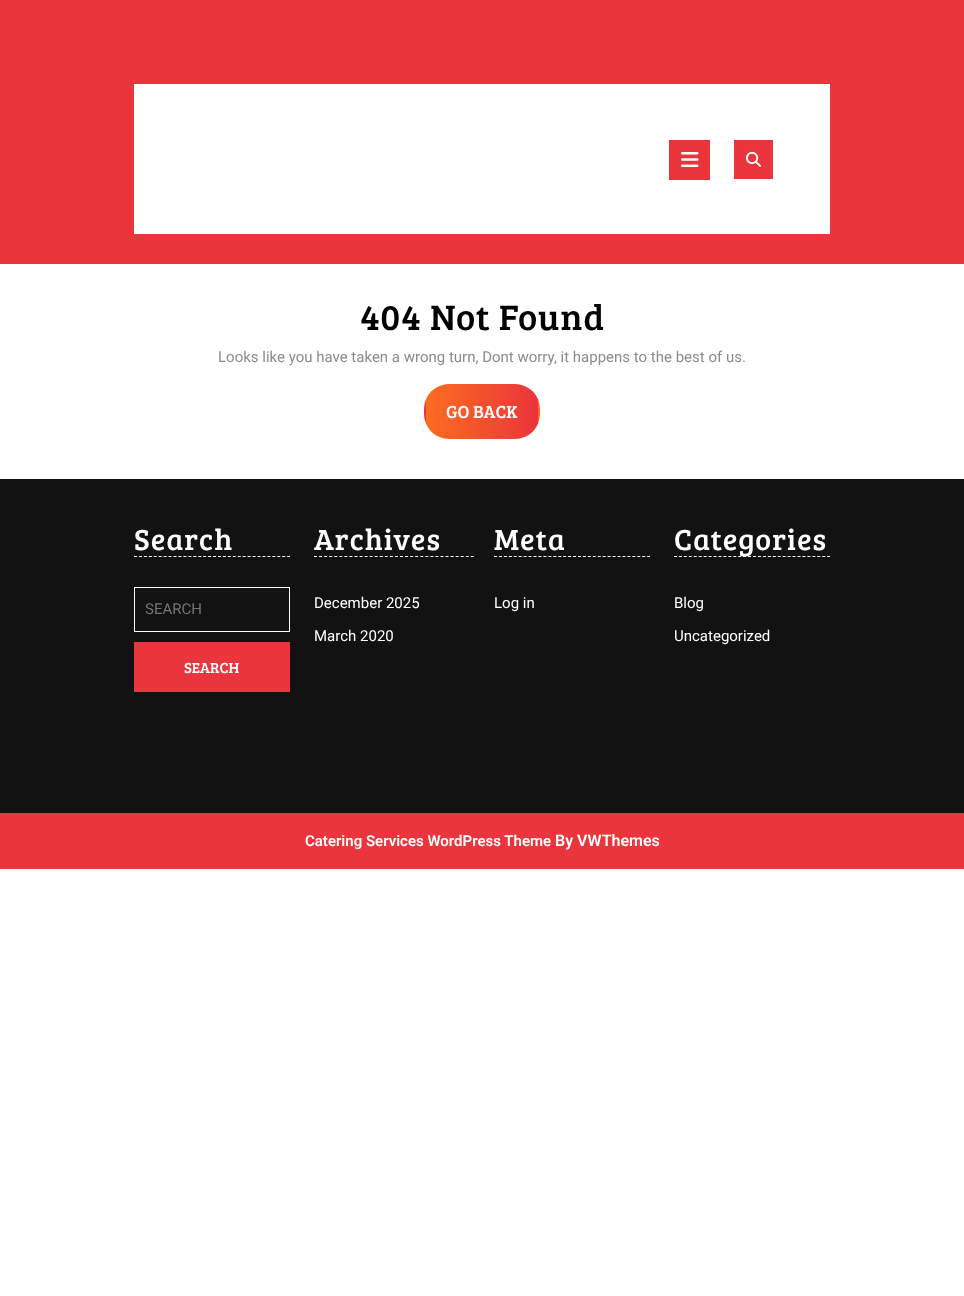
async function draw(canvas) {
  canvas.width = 964;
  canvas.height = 1296;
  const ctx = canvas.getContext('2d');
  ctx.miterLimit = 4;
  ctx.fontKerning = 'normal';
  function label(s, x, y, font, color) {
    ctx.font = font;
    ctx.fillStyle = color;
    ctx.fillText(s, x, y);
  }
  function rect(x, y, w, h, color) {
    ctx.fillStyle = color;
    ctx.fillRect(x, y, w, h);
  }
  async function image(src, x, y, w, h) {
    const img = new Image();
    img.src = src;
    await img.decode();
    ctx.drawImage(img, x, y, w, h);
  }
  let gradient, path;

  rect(0, 0, 964, 1296, '#fff');
  rect(0, 0, 964, 264, '#eb353c');
  rect(134, 84, 696, 150, '#fff');
  rect(669, 140, 41, 40, '#eb353c');
  await image('assets/img1.png', 681, 152, 18, 15);
  rect(734, 140, 39, 39, '#eb353c');
  await image('assets/img2.png', 746, 151, 15, 16);
  ctx.letterSpacing = '1px';
  label('404 Not Found', 360, 330, '36.5px Bree Serif', '#000');
  ctx.letterSpacing = '0px';
  label('Looks like you have taken a wrong turn, Dont worry, it happens to the best of us.', 218, 362, '15px Roboto', '#8d8b8b');
  ctx.save();
  ctx.beginPath();
  ctx.roundRect(424, 384, 116, 55, 25);
  ctx.clip();
  gradient = ctx.createLinearGradient(314, 412, 426, 412);
  gradient.addColorStop(0, '#fb6d21');
  gradient.addColorStop(1, '#eb343b');
  ctx.fillStyle = gradient;
  ctx.fillRect(424, 399, 2, 25);
  gradient = ctx.createLinearGradient(426, 412, 538, 412);
  gradient.addColorStop(0, '#fb6d21');
  gradient.addColorStop(1, '#eb343b');
  ctx.fillStyle = gradient;
  ctx.fillRect(426, 384, 112, 55);
  gradient = ctx.createLinearGradient(538, 412, 650, 412);
  gradient.addColorStop(0, '#fb6d21');
  gradient.addColorStop(1, '#eb343b');
  ctx.fillStyle = gradient;
  ctx.fillRect(538, 399, 2, 25);
  ctx.restore();
  label('GO BACK', 446, 418, '18px Bree Serif', '#fff');
  rect(0, 479, 964, 334, '#121212');
  path = new Path2D('M134 556.5H290');
  ctx.strokeStyle = '#fff';
  ctx.setLineDash([3, 1.94]);
  ctx.stroke(path);
  ctx.letterSpacing = '1px';
  label('Search', 134, 550, '30px Bree Serif', '#fff');
  ctx.setLineDash([]);
  ctx.strokeRect(134.5, 587.5, 155, 44);
  ctx.letterSpacing = '0px';
  label('SEARCH', 145, 614, '15px Roboto', '#757575');
  rect(134, 642, 156, 50, '#eb353c');
  label('SEARCH', 184, 673, '15px Bree Serif', '#fff');
  path = new Path2D('M314 556.5H474');
  ctx.setLineDash([3, 2.06]);
  ctx.stroke(path);
  ctx.letterSpacing = '1px';
  label('Archives', 314, 550, '30px Bree Serif', '#fff');
  ctx.letterSpacing = '0px';
  label('December 2025', 314, 608, '15px Roboto', '#fff');
  label('March 2020', 314, 641, '15px Roboto', '#fff');
  path = new Path2D('M494 556.5H650');
  ctx.setLineDash([3, 1.94]);
  ctx.stroke(path);
  ctx.letterSpacing = '1px';
  label('Meta', 494, 550, '30px Bree Serif', '#fff');
  ctx.letterSpacing = '0px';
  label('Log in', 494, 608, '15px Roboto', '#fff');
  path = new Path2D('M674 556.5H830');
  ctx.stroke(path);
  ctx.letterSpacing = '1px';
  label('Categories', 674, 550, '30px Bree Serif', '#fff');
  ctx.letterSpacing = '0px';
  label('Blog', 674, 608, '15px Roboto', '#fff');
  label('Uncategorized', 674, 641, '15px Roboto', '#fff');
  rect(0, 813, 964, 56, '#eb353c');
  label('Catering Services WordPress Theme', 305, 846, '600 15px Roboto', '#fff');
  label('By VWThemes', 555, 846, '600 16px Roboto', '#fff');
}

draw(document.querySelector('canvas'));
